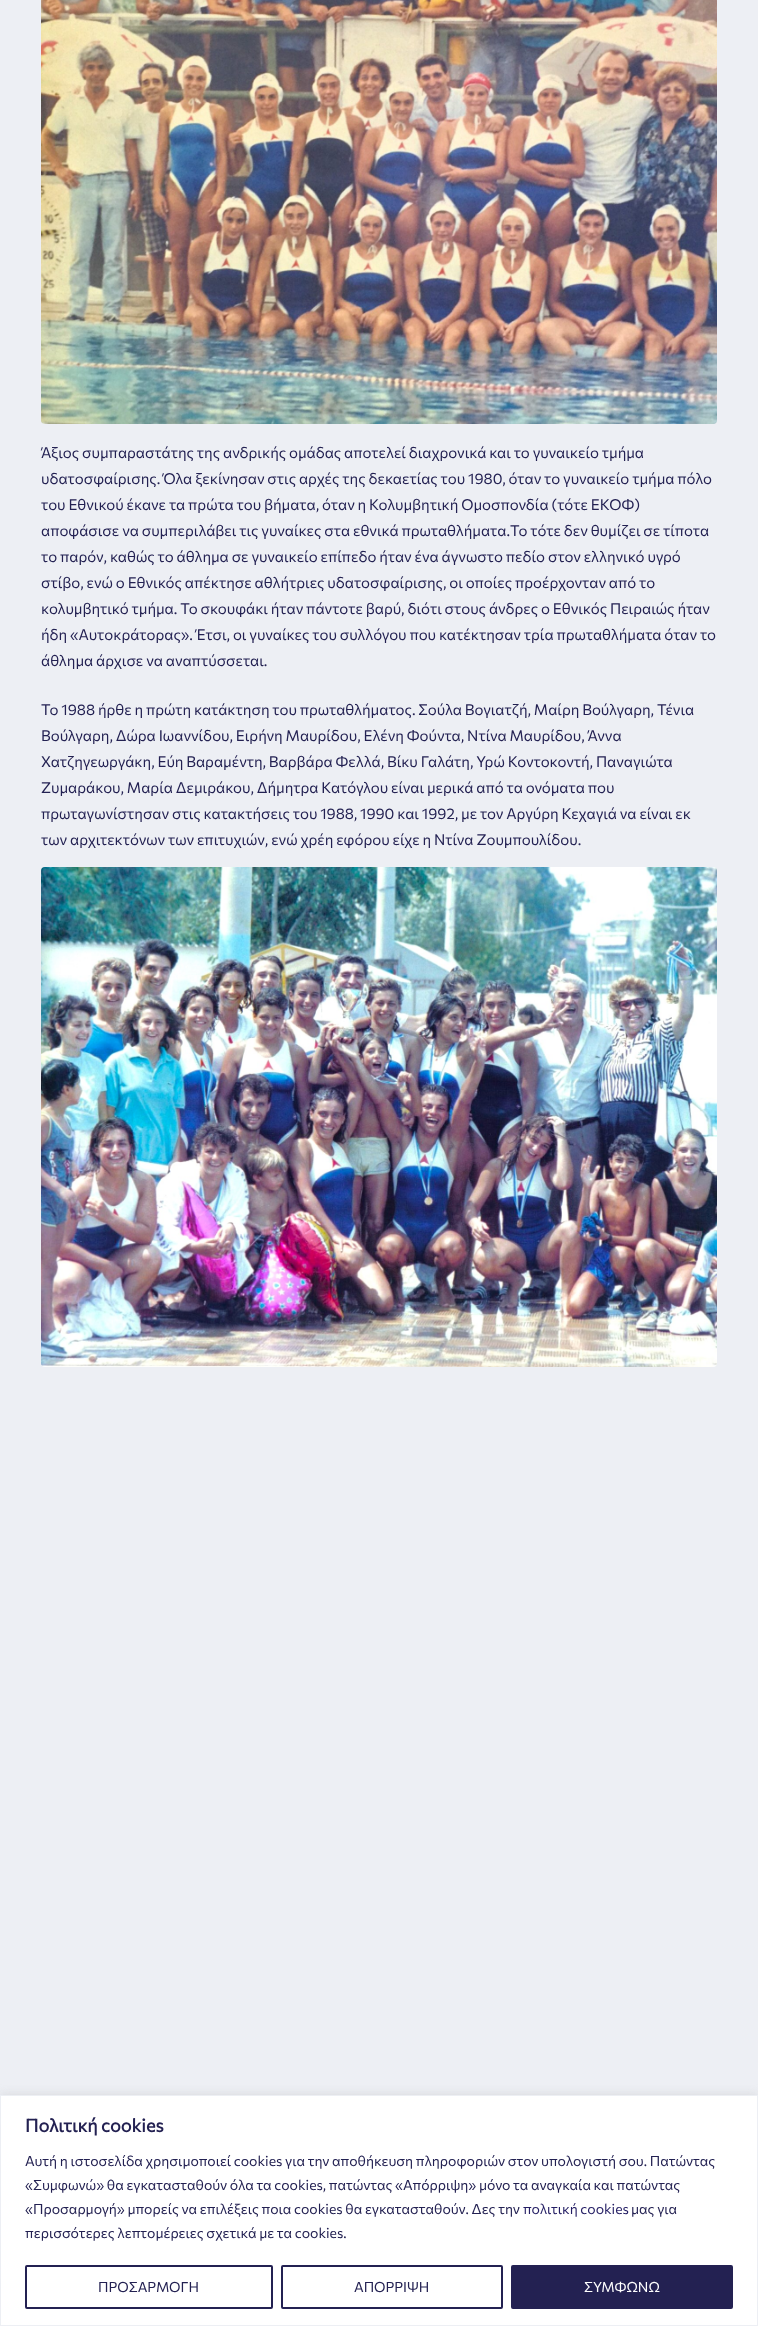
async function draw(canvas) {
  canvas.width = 758;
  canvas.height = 2326;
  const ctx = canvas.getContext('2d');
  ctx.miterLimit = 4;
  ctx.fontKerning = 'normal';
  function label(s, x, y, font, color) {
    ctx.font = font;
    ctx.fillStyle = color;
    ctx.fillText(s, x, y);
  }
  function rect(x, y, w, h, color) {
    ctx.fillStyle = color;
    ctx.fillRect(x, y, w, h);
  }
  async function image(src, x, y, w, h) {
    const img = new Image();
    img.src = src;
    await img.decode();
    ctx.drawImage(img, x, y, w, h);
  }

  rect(0, 0, 758, 2326, '#edeff4');
  await image('assets/img1.png', 41, 0, 676, 424);
  label('Άξιος συμπαραστάτης της ανδρικής ομάδας αποτελεί διαχρονικά και το γυναικείο τμήμα', 41, 458, '100 15px Commissioner', '#232152');
  label('υδατοσφαίρισης. Όλα ξεκίνησαν στις αρχές της δεκαετίας του 1980, όταν το γυναικείο τμήμα πόλο', 41, 484, '100 15px Commissioner', '#232152');
  label('του Εθνικού έκανε τα πρώτα του βήματα, όταν η Κολυμβητική Ομοσπονδία (τότε ΕΚΟΦ)', 41, 510, '100 15px Commissioner', '#232152');
  label('αποφάσισε να συμπεριλάβει τις γυναίκες στα εθνικά πρωταθλήματα.Το τότε δεν θυμίζει σε τίποτα', 41, 536, '100 15px Commissioner', '#232152');
  label('το παρόν, καθώς το άθλημα σε γυναικείο επίπεδο ήταν ένα άγνωστο πεδίο στον ελληνικό υγρό', 41, 562, '100 15px Commissioner', '#232152');
  label('στίβο, ενώ ο Εθνικός απέκτησε αθλήτριες υδατοσφαίρισης, οι οποίες προέρχονταν από το', 41, 588, '100 15px Commissioner', '#232152');
  label('κολυμβητικό τμήμα. Το σκουφάκι ήταν πάντοτε βαρύ, διότι στους άνδρες ο Εθνικός Πειραιώς ήταν', 41, 614, '100 15px Commissioner', '#232152');
  label('ήδη «Αυτοκράτορας». Έτσι, οι γυναίκες του συλλόγου που κατέκτησαν τρία πρωταθλήματα όταν το', 41, 640, '100 15px Commissioner', '#232152');
  label('άθλημα άρχισε να αναπτύσσεται.', 41, 666, '100 15px Commissioner', '#232152');
  label('Το 1988 ήρθε η πρώτη κατάκτηση του πρωταθλήματος. Σούλα Βογιατζή, Μαίρη Βούλγαρη, Τένια', 41, 715, '100 15px Commissioner', '#232152');
  label('Βούλγαρη, Δώρα Ιωαννίδου, Ειρήνη Μαυρίδου, Ελένη Φούντα, Ντίνα Μαυρίδου, Άννα', 41, 741, '100 15px Commissioner', '#232152');
  label('Χατζηγεωργάκη, Εύη Βαραμέντη, Βαρβάρα Φελλά, Βίκυ Γαλάτη, Υρώ Κοντοκοντή, Παναγιώτα', 41, 767, '100 15px Commissioner', '#232152');
  label('Ζυμαράκου, Μαρία Δεμιράκου, Δήμητρα Κατόγλου είναι μερικά από τα ονόματα που', 41, 793, '100 15px Commissioner', '#232152');
  label('πρωταγωνίστησαν στις κατακτήσεις του 1988, 1990 και 1992, με τον Αργύρη Κεχαγιά να είναι εκ', 41, 819, '100 15px Commissioner', '#232152');
  label('των αρχιτεκτόνων των επιτυχιών, ενώ χρέη εφόρου είχε η Ντίνα Ζουμπουλίδου.', 41, 845, '100 15px Commissioner', '#232152');
  await image('assets/img2.png', 41, 867, 676, 500);
  ctx.fillStyle = '#acabab4d';
  ctx.filter = 'blur(5px)';
  ctx.beginPath();
  ctx.rect(0, 2094, 758, 231);
  ctx.fill();
  ctx.filter = 'none';
  ctx.fillStyle = '#fff';
  ctx.beginPath();
  ctx.rect(0.5, 2095.5, 757, 230);
  ctx.fill();
  ctx.strokeStyle = '#edeff4';
  ctx.stroke();
  label('Πολιτική cookies', 25, 2132, 'bold 18px Commissioner', '#232152');
  label('Αυτή η ιστοσελίδα χρησιμοποιεί cookies για την αποθήκευση πληροφοριών στον υπολογιστή σου. Πατώντας', 25, 2166, '100 14px Commissioner', '#232152');
  label('«Συμφωνώ» θα εγκατασταθούν όλα τα cookies, πατώντας «Απόρριψη» μόνο τα αναγκαία και πατώντας', 25, 2190, '100 14px Commissioner', '#232152');
  label('«Προσαρμογή» μπορείς να επιλέξεις ποια cookies θα εγκατασταθούν. Δες την', 25, 2214, '100 14px Commissioner', '#232152');
  label('πολιτική cookies', 523, 2214, '100 14px Commissioner', '#241e64');
  label('μας για', 631, 2214, '100 14px Commissioner', '#232152');
  label('περισσότερες λεπτομέρειες σχετικά με τα cookies.', 25, 2238, '100 14px Commissioner', '#232152');
  ctx.beginPath();
  ctx.roundRect(26, 2266, 246, 42, 1);
  ctx.strokeStyle = '#232152';
  ctx.lineWidth = 2;
  ctx.stroke();
  label('ΠΡΟΣΑΡΜΟΓΗ', 98, 2292, '100 14px Commissioner', '#232152');
  ctx.beginPath();
  ctx.roundRect(282, 2266, 220, 42, 1);
  ctx.stroke();
  label('ΑΠΟΡΡΙΨΗ', 354, 2292, '100 14px Commissioner', '#232152');
  ctx.beginPath();
  ctx.roundRect(512, 2266, 220, 42, 1);
  ctx.fill();
  ctx.stroke();
  label('ΣΥΜΦΩΝΩ', 584, 2292, '100 14px Commissioner', '#fff');
}

draw(document.querySelector('canvas'));
